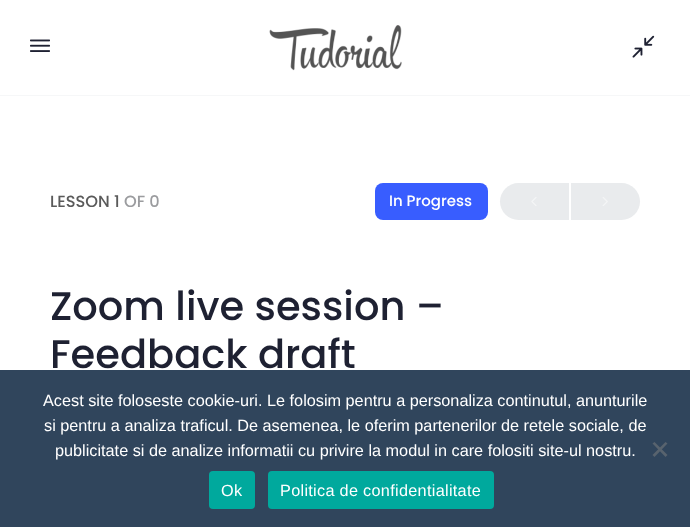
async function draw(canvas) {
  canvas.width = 690;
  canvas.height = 527;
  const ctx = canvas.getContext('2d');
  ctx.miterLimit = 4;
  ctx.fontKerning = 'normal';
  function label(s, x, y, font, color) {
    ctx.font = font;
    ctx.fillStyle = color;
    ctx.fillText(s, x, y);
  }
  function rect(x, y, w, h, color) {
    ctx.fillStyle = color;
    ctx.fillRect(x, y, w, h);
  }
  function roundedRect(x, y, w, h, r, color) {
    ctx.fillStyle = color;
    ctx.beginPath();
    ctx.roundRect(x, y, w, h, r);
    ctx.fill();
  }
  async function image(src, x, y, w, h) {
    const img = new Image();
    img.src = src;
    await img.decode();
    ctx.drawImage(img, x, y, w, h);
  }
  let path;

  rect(0, 0, 690, 527, '#fff');
  rect(0, 95, 690, 1, '#f6f7f8');
  await image('assets/img1.png', 30, 39, 20, 13);
  await image('assets/img2.png', 269, 25, 133, 46);
  await image('assets/img3.png', 632, 35, 23, 23);
  label('LESSON 1', 50, 207, '500 16.25px Poppins', '#5a5a5a');
  label('OF 0', 124, 207, '500 16.25px Poppins', '#9b9c9f');
  roundedRect(375, 183, 113, 37, 8, '#385dff');
  label('In Progress', 389, 206, '500 15px Poppins', '#fff');
  ctx.fillStyle = '#e9ebed';
  ctx.beginPath();
  ctx.roundRect(500, 183, 69, 37, [18.5, 0, 0, 18.5]);
  ctx.fill();
  await image('assets/img4.png', 531, 197, 6, 9);
  ctx.beginPath();
  ctx.roundRect(571, 183, 69, 37, [0, 18.5, 18.5, 0]);
  ctx.fill();
  await image('assets/img5.png', 602, 197, 6, 9);
  label('Zoom live session –', 50, 320, '500 40px Poppins', '#1e2132');
  label('Feedback draft', 50, 368, '500 40px Poppins', '#1e2132');
  rect(0, 370, 690, 157, '#30455c');
  label('Acest site foloseste cookie-uri. Le folosim pentru a personaliza continutul, anunturile', 43, 406, '16.25px Liberation Sans', '#fff');
  label('si pentru a analiza traficul. De asemenea, le oferim partenerilor de retele sociale, de', 44, 431, '16.25px Liberation Sans', '#fff');
  label('publicitate si de analize informatii cu privire la modul in care folositi site-ul nostru.', 55, 456, '16.25px Liberation Sans', '#fff');
  ctx.fillStyle = '#58636e';
  path = new Path2D('M665.5 442L667.5 443.5L654.5 457L652.5 455Z');
  ctx.fill(path);
  path = new Path2D('M652.5 443.5L654.5 442L667.5 455L665.5 457Z');
  ctx.fill(path);
  roundedRect(209, 471, 46, 38, 4, '#00a99d');
  ctx.letterSpacing = '0.3px';
  label('Ok', 221, 496, '16.25px Liberation Sans', '#fff');
  roundedRect(268, 471, 226, 38, 4, '#00a99d');
  label('Politica de confidentialitate', 280, 496, '16.25px Liberation Sans', '#fff');
}

draw(document.querySelector('canvas'));
